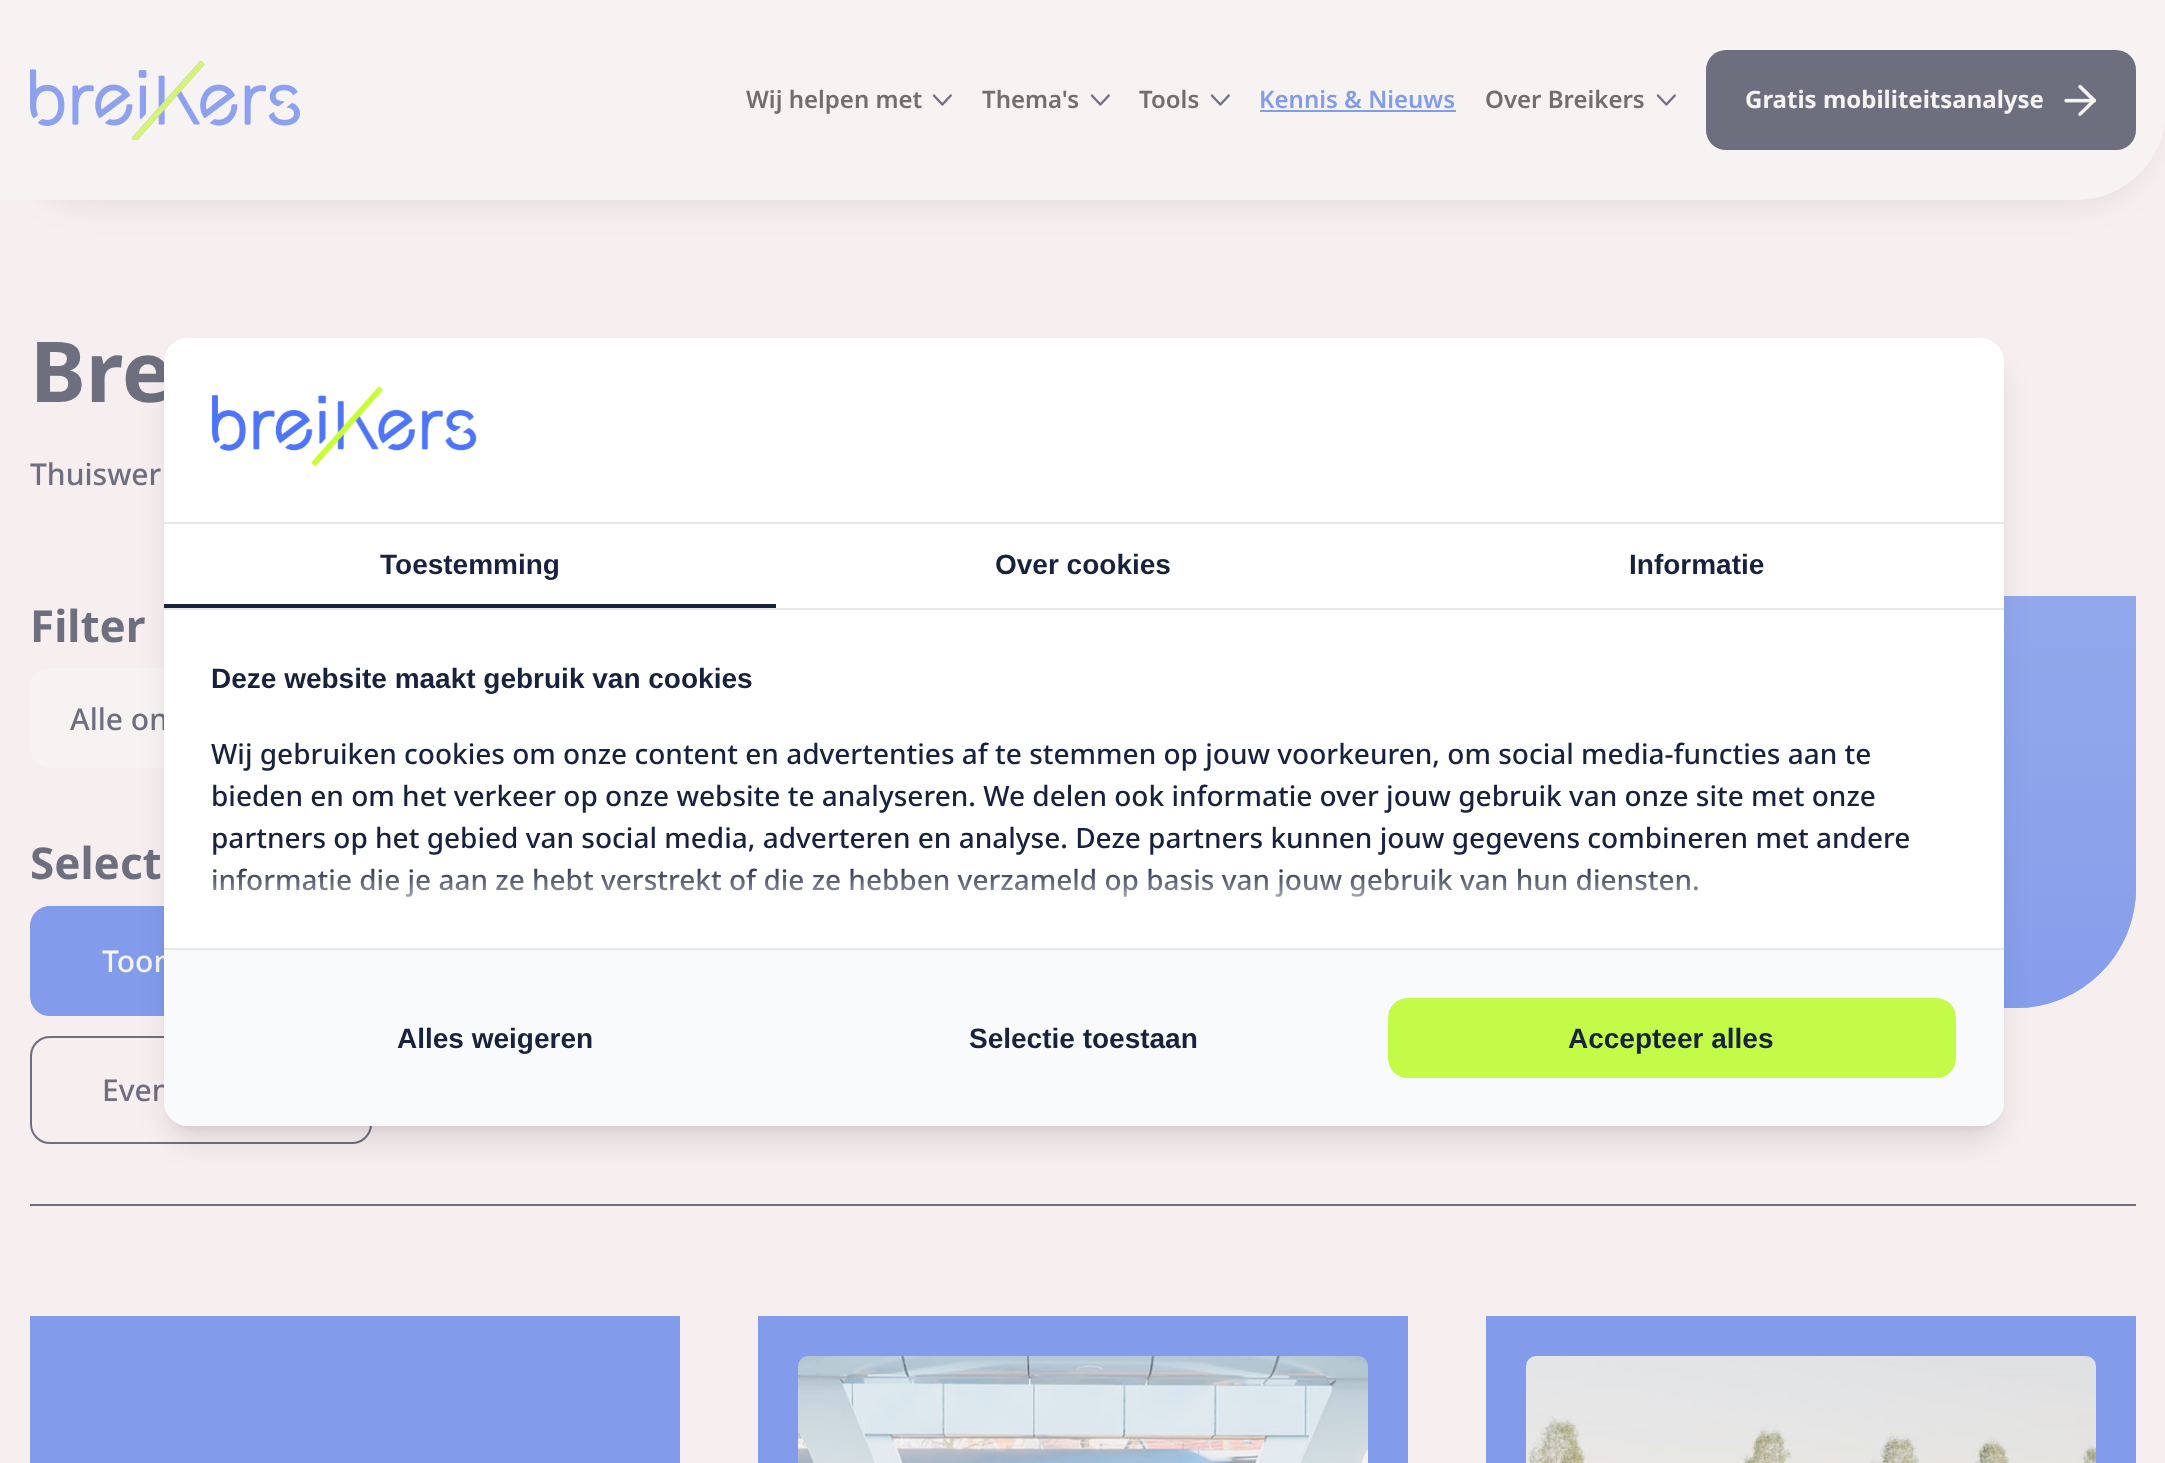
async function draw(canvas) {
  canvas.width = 2165;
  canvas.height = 1463;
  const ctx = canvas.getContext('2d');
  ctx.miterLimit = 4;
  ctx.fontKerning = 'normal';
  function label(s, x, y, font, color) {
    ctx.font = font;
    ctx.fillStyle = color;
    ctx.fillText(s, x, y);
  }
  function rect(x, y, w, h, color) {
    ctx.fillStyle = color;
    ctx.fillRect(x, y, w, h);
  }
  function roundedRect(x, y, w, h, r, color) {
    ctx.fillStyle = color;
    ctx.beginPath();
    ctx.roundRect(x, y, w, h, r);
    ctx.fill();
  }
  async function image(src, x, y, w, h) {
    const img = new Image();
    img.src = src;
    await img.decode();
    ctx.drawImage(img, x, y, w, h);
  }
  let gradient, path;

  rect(0, 0, 2165, 1463, '#f7eef0');
  ctx.fillStyle = '#5e5a5a33';
  ctx.filter = 'blur(19px)';
  ctx.beginPath();
  ctx.roundRect(22, 38, 2122, 156, 68);
  ctx.fill();
  ctx.filter = 'none';
  ctx.fillStyle = '#f7f3f3';
  path = new Path2D('M0 0H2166V110C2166 159.5 2125.5 200 2076 200H0Z');
  ctx.fill(path);
  await image('assets/img1.png', 30, 60, 270, 80);
  label('Wij helpen met', 746, 108, '600 24px Noto Sans', '#716e70');
  await image('assets/img2.png', 932, 94, 20, 12);
  label('Thema\'s', 982, 108, '600 24px Noto Sans', '#716e70');
  await image('assets/img2.png', 1090, 94, 20, 12);
  label('Tools', 1139, 108, '600 24px Noto Sans', '#716e70');
  await image('assets/img2.png', 1210, 94, 20, 12);
  label('Kennis & Nieuws', 1259, 108, '600 24px Noto Sans', '#829beb');
  rect(1260, 110, 196, 2, '#829beb');
  label('Over Breikers', 1485, 108, '600 24px Noto Sans', '#716e70');
  await image('assets/img2.png', 1656, 94, 20, 12);
  roundedRect(1706, 50, 430, 100, 20, '#6d6f7e');
  label('Gratis mobiliteitsanalyse', 1745, 108, 'bold 24px Noto Sans', '#f7f3f3');
  await image('assets/img3.png', 2064, 84, 32, 32);
  label('Bre', 30, 402, 'bold 84px Noto Sans', '#6d6f7e');
  label('Thuiswer', 30, 485, '500 30px Noto Sans', '#6d6f7e');
  label('Filter', 30, 642, 'bold 44px Noto Sans', '#6d6f7e');
  roundedRect(30, 668, 660, 100, 20, '#f7f3f3');
  label('Alle on', 70, 730, '500 30px Noto Sans', '#6d6f7e');
  label('Select', 30, 879, 'bold 44px Noto Sans', '#6d6f7e');
  ctx.fillStyle = '#829beb';
  ctx.beginPath();
  ctx.roundRect(31, 907, 286, 108, 19);
  ctx.fill();
  ctx.strokeStyle = '#829beb';
  ctx.lineWidth = 2;
  ctx.stroke();
  label('Toon', 102, 972, '500 30px Noto Sans', '#f7f3f3');
  ctx.beginPath();
  ctx.roundRect(31, 1037, 340, 106, 19);
  ctx.strokeStyle = '#6d6f7e';
  ctx.stroke();
  label('Even', 102, 1101, '500 30px Noto Sans', '#6d6f7e');
  ctx.fillStyle = '#829beb';
  ctx.beginPath();
  ctx.roundRect(1324, 596, 812, 412, [0, 0, 120, 0]);
  ctx.fill();
  gradient = ctx.createLinearGradient(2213, 372, 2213, 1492);
  gradient.addColorStop(0.12, '#95aaec');
  gradient.addColorStop(0.7, '#829beb');
  ctx.fillStyle = gradient;
  path = new Path2D('M1903 596H2136V888C2136 954 2082 1008 2016 1008H1762C1737 857 1791 700 1903 596Z');
  ctx.fill(path);
  rect(30, 1204, 2106, 2, '#6d6f7e');
  rect(30, 1316, 650, 147, '#829beb');
  rect(758, 1316, 650, 147, '#829beb');
  await image('assets/img4.png', 798, 1356, 570, 107);
  rect(1486, 1316, 650, 147, '#829beb');
  await image('assets/img5.png', 1526, 1356, 570, 107);
  ctx.fillStyle = '#0000001a';
  ctx.filter = 'blur(6px)';
  ctx.beginPath();
  ctx.roundRect(172, 354, 1824, 772, 16);
  ctx.fill();
  ctx.filter = 'none';
  ctx.filter = 'blur(15px)';
  ctx.beginPath();
  ctx.roundRect(170, 364, 1828, 776, 18);
  ctx.fill();
  ctx.filter = 'none';
  roundedRect(164, 338, 1840, 788, 24, '#fff');
  rect(164, 522, 1840, 2, '#e5e7eb');
  await image('assets/img6.png', 212, 386, 265, 80);
  rect(164, 608, 1840, 2, '#e5e7eb');
  rect(164, 604, 612, 4, '#19223c');
  label('Toestemming', 380, 574, 'bold 28px Liberation Sans', '#19223c');
  label('Over cookies', 995, 574, 'bold 28px Liberation Sans', '#19223c');
  label('Informatie', 1629, 574, 'bold 28px Liberation Sans', '#19223c');
  label('Deze website maakt gebruik van cookies', 211, 688, 'bold 28px Liberation Sans', '#19223c');
  label('Wij gebruiken cookies om onze content en advertenties af te stemmen op jouw voorkeuren, om social media-functies aan te', 211, 764, '500 28px Noto Sans', '#19223c');
  label('bieden en om het verkeer op onze website te analyseren. We delen ook informatie over jouw gebruik van onze site met onze', 211, 806, '500 28px Noto Sans', '#19223c');
  label('partners op het gebied van social media, adverteren en analyse. Deze partners kunnen jouw gegevens combineren met andere', 211, 848, '500 28px Noto Sans', '#19223c');
  label('informatie die je aan ze hebt verstrekt of die ze hebben verzameld op basis van jouw gebruik van hun diensten.', 211, 890, '500 28px Noto Sans', '#19223c');
  ctx.save();
  ctx.beginPath();
  ctx.roundRect(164, 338, 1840, 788, 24);
  ctx.clip();
  ctx.fillStyle = '#fff';
  ctx.filter = 'blur(20px)';
  ctx.beginPath();
  ctx.rect(148, 892, 1872, 210);
  ctx.fill();
  ctx.filter = 'none';
  ctx.restore();
  ctx.fillStyle = '#f9fafb';
  ctx.beginPath();
  ctx.roundRect(164, 948, 1840, 178, [0, 0, 24, 24]);
  ctx.fill();
  rect(164, 948, 1840, 2, '#e5e7eb');
  label('Alles weigeren', 397, 1048, 'bold 28px Liberation Sans', '#19223c');
  label('Selectie toestaan', 969, 1048, 'bold 28px Liberation Sans', '#19223c');
  roundedRect(1388, 998, 568, 80, 20, '#c4fb48');
  label('Accepteer alles', 1568, 1048, 'bold 28px Liberation Sans', '#19223c');
}

draw(document.querySelector('canvas'));
